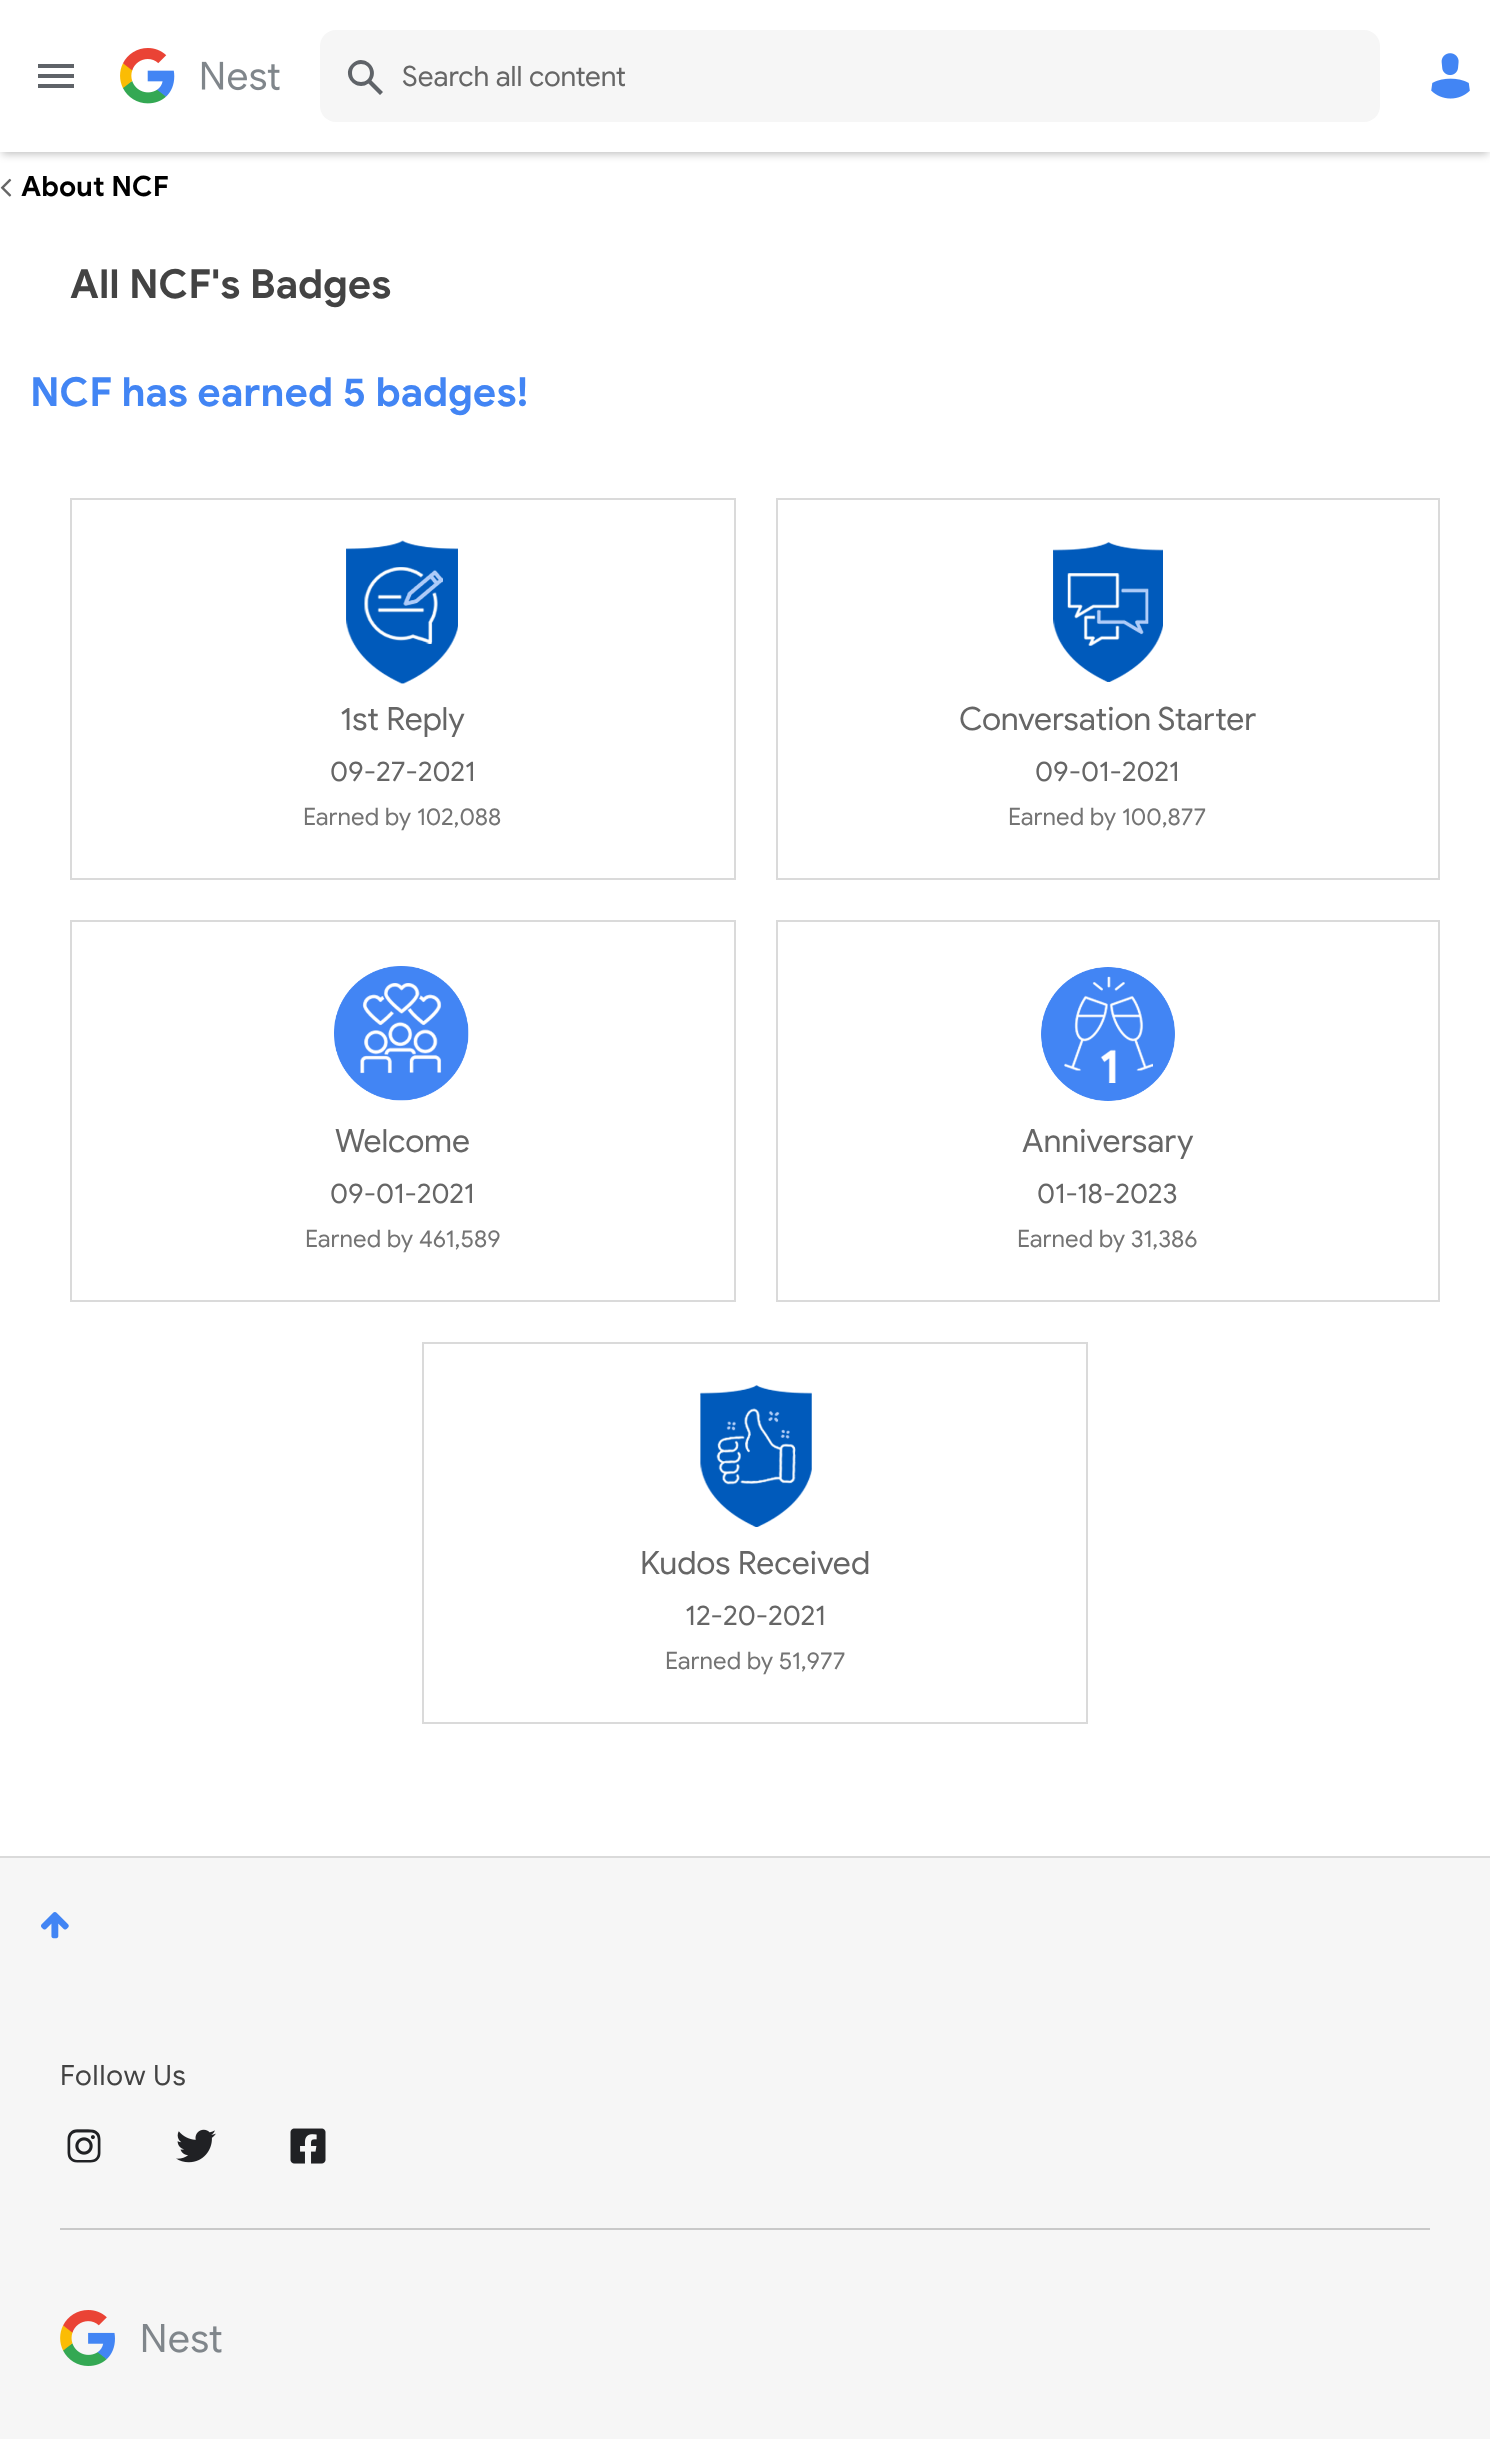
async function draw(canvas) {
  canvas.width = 1490;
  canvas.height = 2439;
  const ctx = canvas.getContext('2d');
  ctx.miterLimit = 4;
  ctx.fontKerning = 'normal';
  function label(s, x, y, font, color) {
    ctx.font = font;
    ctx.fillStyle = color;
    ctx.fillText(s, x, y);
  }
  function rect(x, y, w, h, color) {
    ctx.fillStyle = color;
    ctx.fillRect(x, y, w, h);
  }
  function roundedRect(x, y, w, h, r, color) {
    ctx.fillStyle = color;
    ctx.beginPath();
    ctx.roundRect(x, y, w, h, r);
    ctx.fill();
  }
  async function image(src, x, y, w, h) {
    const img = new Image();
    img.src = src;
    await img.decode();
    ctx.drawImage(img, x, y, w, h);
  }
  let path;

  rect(0, 0, 1490, 2439, '#fff');
  ctx.fillStyle = '#00000040';
  ctx.filter = 'blur(4px)';
  ctx.beginPath();
  ctx.rect(2, 6, 1486, 148);
  ctx.fill();
  ctx.filter = 'none';
  rect(0, 0, 1490, 152, '#fff');
  ctx.fillStyle = '#5f6368';
  path = new Path2D('M38 88H74V84H38ZM38 78H74V74H38ZM38 64V68H74V64Z');
  ctx.fill(path);
  await image('assets/img1.png', 120, 48, 160, 56);
  roundedRect(320, 30, 1060, 92, 16, '#f6f6f6');
  ctx.fillStyle = '#5f6368';
  path = new Path2D('M383 92L371.5 80.5C380.5 68 363 52.5 352 64C340.5 75 356 92.5 368.5 83.5L380 95ZM352 73C352 61 370 61 370 73C370 85 352 85 352 73Z');
  ctx.fill(path);
  label('Search all content', 402, 86, '28px Google Sans', '#666');
  await image('assets/img2.png', 1431, 53, 39, 46);
  await image('assets/img3.png', 0, 178, 12, 19);
  label('About NCF', 21, 196, 'bold 28px Google Sans', '#000');
  label('All NCF\'s Badges', 70, 298, 'bold 40px Google Sans', '#434343');
  label('NCF has earned 5 badges!', 30, 406, 'bold 40px Google Sans', '#4285f4');
  ctx.strokeStyle = '#dadada';
  ctx.lineWidth = 2;
  ctx.strokeRect(71, 499, 664, 380);
  await image('assets/img4.png', 346, 540, 112, 144);
  label('1st Reply', 340, 730, '32px Google Sans', '#666');
  label('09-27-2021', 330, 781, '28px Google Sans', '#666');
  label('Earned by 102,088', 303, 825, '24px Google Sans', '#747474');
  ctx.strokeRect(777, 499, 662, 380);
  await image('assets/img5.png', 1053, 542, 110, 140);
  label('Conversation Starter', 959, 730, '32px Google Sans', '#666');
  label('09-01-2021', 1035, 781, '28px Google Sans', '#666');
  label('Earned by 100,877', 1008, 825, '24px Google Sans', '#747474');
  ctx.strokeRect(71, 921, 664, 380);
  await image('assets/img6.png', 334, 966, 135, 135);
  label('Welcome', 335, 1152, '32px Google Sans', '#666');
  label('09-01-2021', 330, 1203, '28px Google Sans', '#666');
  label('Earned by 461,589', 305, 1247, '24px Google Sans', '#747474');
  ctx.strokeRect(777, 921, 662, 380);
  await image('assets/img7.png', 1041, 967, 134, 134);
  label('Anniversary', 1022, 1152, '32px Google Sans', '#666');
  label('01-18-2023', 1037, 1203, '28px Google Sans', '#666');
  label('Earned by 31,386', 1017, 1247, '24px Google Sans', '#747474');
  ctx.strokeRect(423, 1343, 664, 380);
  await image('assets/img8.png', 700, 1385, 112, 142);
  label('Kudos Received', 640, 1574, '32px Google Sans', '#666');
  label('12-20-2021', 685, 1625, '28px Google Sans', '#666');
  label('Earned by 51,977', 665, 1669, '24px Google Sans', '#747474');
  rect(0, 1856, 1490, 2, '#dadada');
  rect(0, 1858, 1490, 581, '#f6f6f6');
  await image('assets/img9.png', 41, 1912, 28, 27);
  rect(60, 2228, 1370, 2, '#c9c9c9');
  ctx.letterSpacing = '1px';
  label('Follow Us', 60, 2085, '28px Google Sans', '#434343');
  await image('assets/img10.png', 67, 2129, 34, 34);
  await image('assets/img11.png', 176, 2129, 40, 34);
  await image('assets/img12.png', 290, 2128, 36, 36);
  await image('assets/img13.png', 60, 2310, 162, 56);
}

draw(document.querySelector('canvas'));
